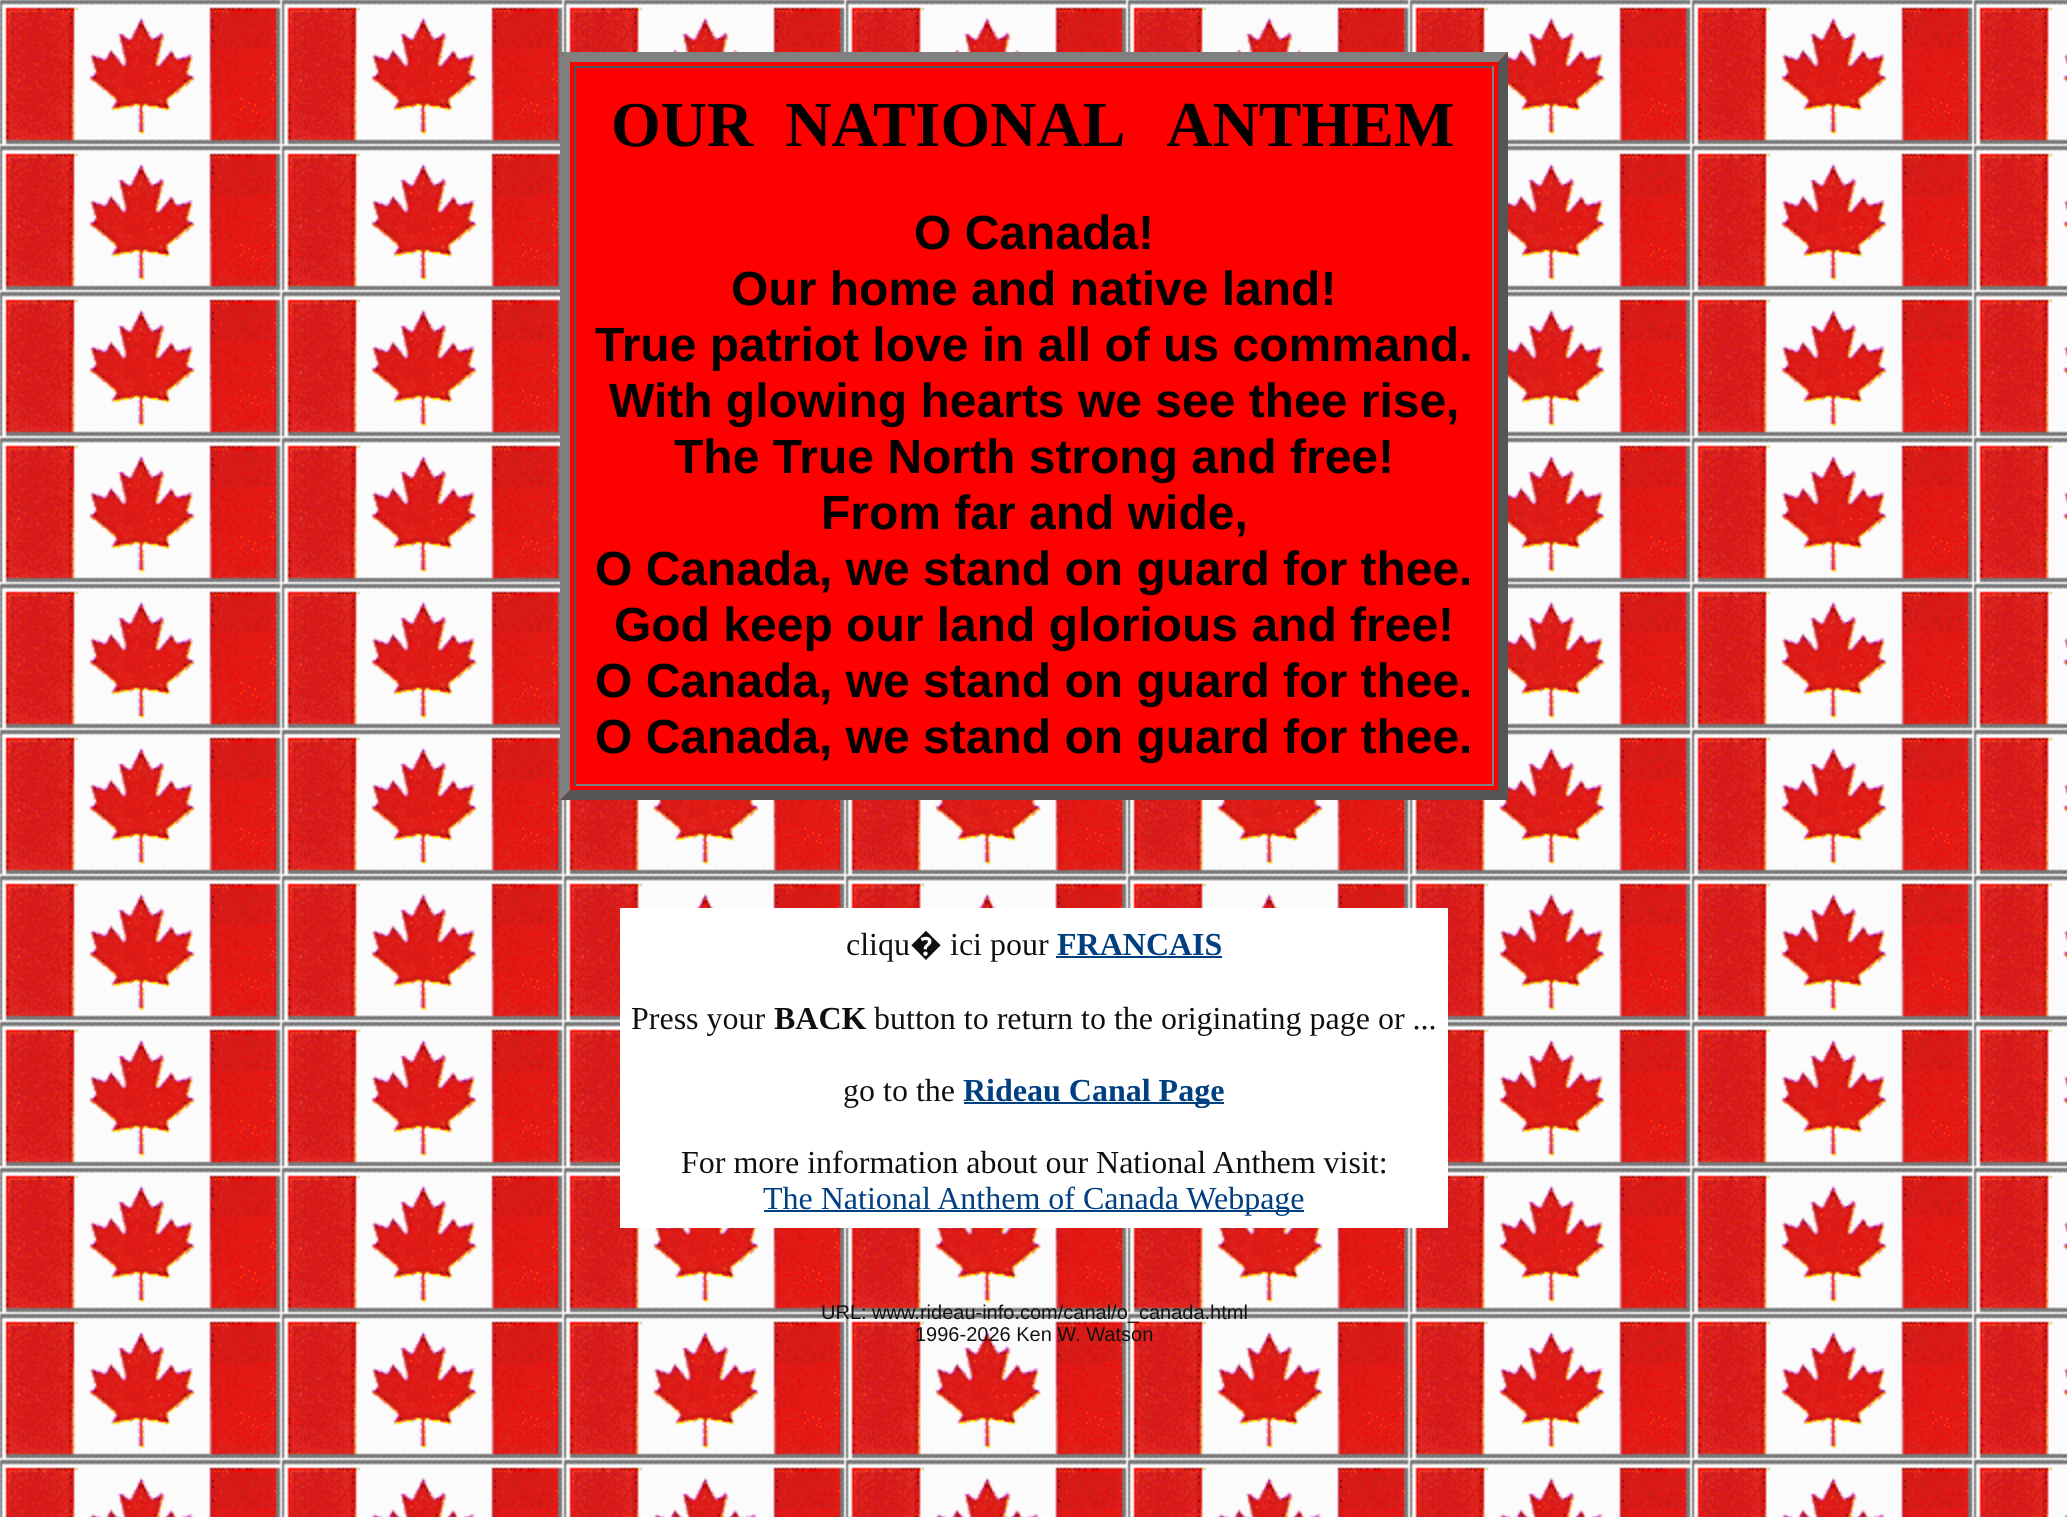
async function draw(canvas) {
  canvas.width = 2067;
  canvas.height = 1517;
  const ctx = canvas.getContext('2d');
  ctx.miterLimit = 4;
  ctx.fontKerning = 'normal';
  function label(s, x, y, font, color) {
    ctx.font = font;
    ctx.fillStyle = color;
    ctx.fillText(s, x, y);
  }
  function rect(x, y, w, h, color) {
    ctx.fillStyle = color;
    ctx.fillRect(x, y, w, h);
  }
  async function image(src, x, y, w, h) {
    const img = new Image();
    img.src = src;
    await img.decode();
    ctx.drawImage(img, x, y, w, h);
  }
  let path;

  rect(0, 0, 2067, 1517, '#fff');
  await image('assets/img1.png', 0, 0, 2067, 1517);
  rect(560, 52, 948, 748, '#f00');
  ctx.fillStyle = '#808080';
  path = new Path2D('M560 52H1508L1498 62H570Z');
  ctx.fill(path);
  ctx.fillStyle = '#555';
  path = new Path2D('M1508 52V800L1498 790V62Z');
  ctx.fill(path);
  path = new Path2D('M1508 800H560L570 790H1498Z');
  ctx.fill(path);
  ctx.fillStyle = '#808080';
  path = new Path2D('M560 800V52L570 62V790Z');
  ctx.fill(path);
  rect(574, 66, 920, 2, '#555');
  rect(1492, 66, 2, 720, '#808080');
  rect(574, 784, 920, 2, '#808080');
  rect(574, 66, 2, 720, '#555');
  label('OUR  NATIONAL   ANTHEM', 611, 146, 'bold 64px Liberation Serif', '#000');
  label('O Canada!', 914, 249, 'bold 48px Liberation Sans', '#000');
  label('Our home and native land!', 731, 305, 'bold 48px Liberation Sans', '#000');
  label('True patriot love in all of us command.', 595, 361, 'bold 48px Liberation Sans', '#000');
  label('With glowing hearts we see thee rise,', 609, 417, 'bold 48px Liberation Sans', '#000');
  label('The True North strong and free!', 674, 473, 'bold 48px Liberation Sans', '#000');
  label('From far and wide,', 821, 529, 'bold 48px Liberation Sans', '#000');
  label('O Canada, we stand on guard for thee.', 595, 585, 'bold 48px Liberation Sans', '#000');
  label('God keep our land glorious and free!', 614, 641, 'bold 48px Liberation Sans', '#000');
  label('O Canada, we stand on guard for thee.', 595, 697, 'bold 48px Liberation Sans', '#000');
  label('O Canada, we stand on guard for thee.', 595, 753, 'bold 48px Liberation Sans', '#000');
  rect(620, 908, 828, 320, '#fff');
  label('cliqu', 846, 955, '32px Liberation Serif', '#0f0f0f');
  label('�', 910, 955, '32px Noto Sans', '#0f0f0f');
  label('ici pour', 950, 955, '32px Liberation Serif', '#0f0f0f');
  label('FRANCAIS', 1057, 955, 'bold 32px Liberation Serif', '#004080');
  rect(1056, 956, 166, 2, '#004080');
  label('Press your', 631, 1029, '32px Liberation Serif', '#0f0f0f');
  label('BACK', 774, 1029, 'bold 32px Liberation Serif', '#0f0f0f');
  label('button to return to the originating page or ...', 874, 1029, '32px Liberation Serif', '#0f0f0f');
  label('go to the', 843, 1101, '32px Liberation Serif', '#0f0f0f');
  rect(964, 1102, 260, 2, '#004080');
  label('Rideau Canal Page', 963, 1101, 'bold 32px Liberation Serif', '#004080');
  label('For more information about our National Anthem visit:', 681, 1173, '32px Liberation Serif', '#0f0f0f');
  rect(764, 1210, 540, 2, '#004080');
  label('The National Anthem of Canada Webpage', 763, 1209, '32px Liberation Serif', '#004080');
  label('URL: www.rideau-info.com/canal/o_canada.html', 821, 1319, '20px Liberation Sans', '#0f0f0f');
  label('1996-2026 Ken W. Watson', 915, 1341, '20px Liberation Sans', '#0f0f0f');
}

draw(document.querySelector('canvas'));
